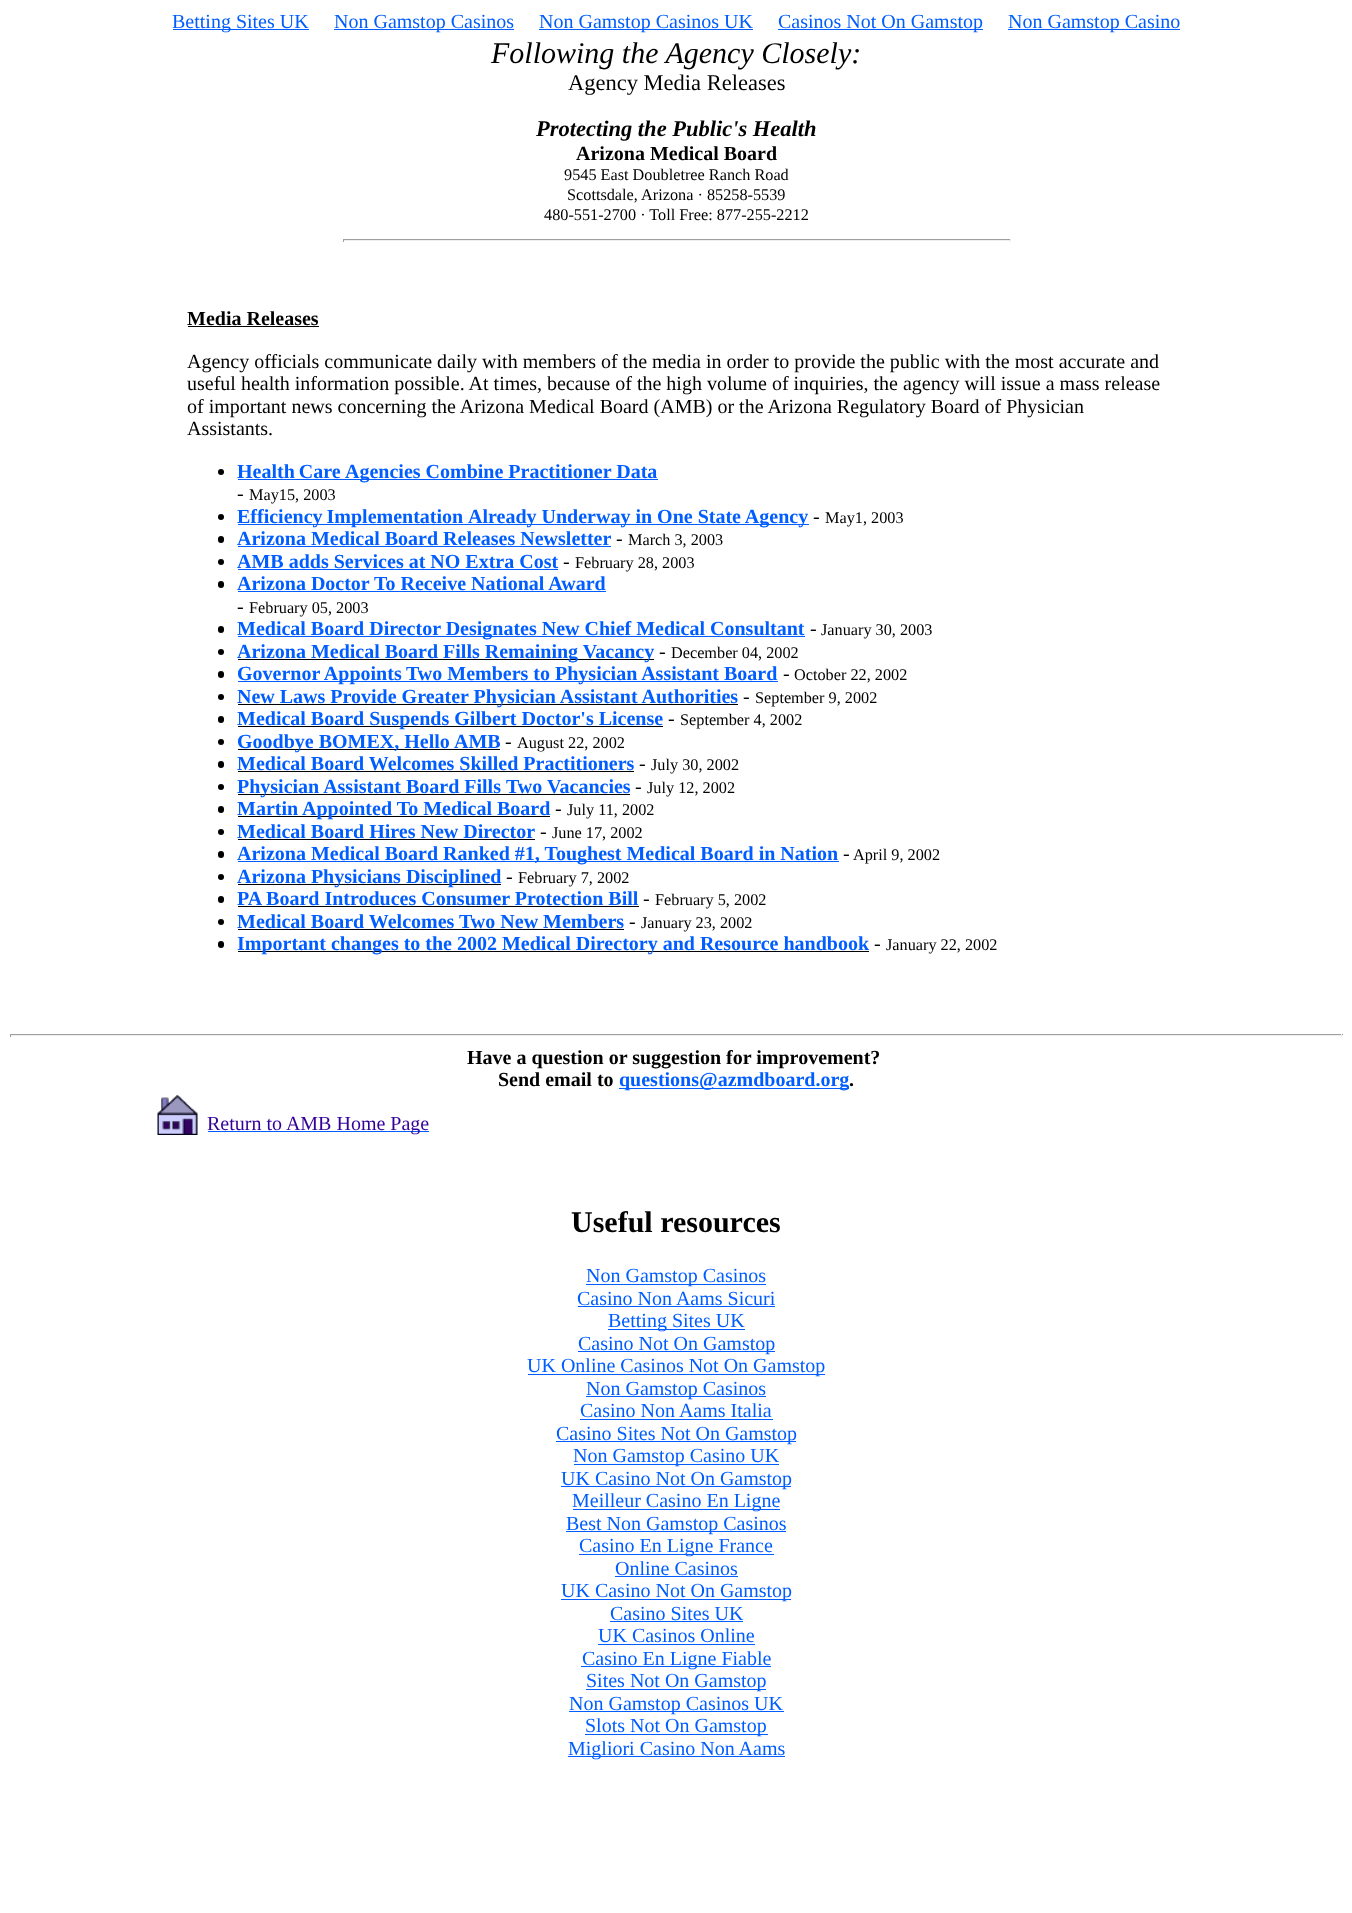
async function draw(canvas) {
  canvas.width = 1352;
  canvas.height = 1913;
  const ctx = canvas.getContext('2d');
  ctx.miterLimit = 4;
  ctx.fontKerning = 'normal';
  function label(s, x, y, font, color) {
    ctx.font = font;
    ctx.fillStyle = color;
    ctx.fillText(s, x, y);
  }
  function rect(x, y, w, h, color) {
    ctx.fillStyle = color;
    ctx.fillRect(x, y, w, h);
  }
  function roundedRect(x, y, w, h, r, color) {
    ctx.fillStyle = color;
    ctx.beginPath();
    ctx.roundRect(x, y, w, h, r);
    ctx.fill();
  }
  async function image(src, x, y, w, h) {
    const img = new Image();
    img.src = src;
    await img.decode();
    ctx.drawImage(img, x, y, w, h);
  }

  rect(0, 0, 1352, 1913, '#fff');
  rect(173, 29, 136, 1, '#005dff');
  label('Betting Sites UK', 172, 28, '20px Liberation Serif', '#005dff');
  rect(334, 29, 180, 1, '#005dff');
  label('Non Gamstop Casinos', 334, 28, '20px Liberation Serif', '#005dff');
  rect(539, 29, 214, 1, '#005dff');
  label('Non Gamstop Casinos UK', 539, 28, '20px Liberation Serif', '#005dff');
  rect(778, 29, 205, 1, '#005dff');
  label('Casinos Not On Gamstop', 778, 28, '20px Liberation Serif', '#005dff');
  rect(1008, 29, 172, 1, '#005dff');
  label('Non Gamstop Casino', 1008, 28, '20px Liberation Serif', '#005dff');
  label('Following the Agency Closely:', 491, 63, 'italic 30px Liberation Serif', '#000');
  label('Agency Media Releases', 568, 90, '22.5px Liberation Serif', '#000');
  label('Protecting the Public\'s Health', 536, 136, 'italic bold 22.5px Liberation Serif', '#000');
  label('Arizona Medical Board', 576, 160, 'bold 20px Liberation Serif', '#000');
  label('9545 East Doubletree Ranch Road', 564, 180, '16.25px Liberation Serif', '#000');
  label('Scottsdale, Arizona · 85258-5539', 567, 200, '16.25px Liberation Serif', '#000');
  label('480-551-2700 · Toll Free: 877-255-2212', 544, 220, '16.25px Liberation Serif', '#000');
  rect(343, 239, 668, 1, '#9f9f9f');
  rect(1010, 239, 1, 3, '#eee');
  rect(343, 240, 668, 1, '#eee');
  rect(343, 239, 1, 3, '#9f9f9f');
  label('Media Releases', 187, 325, 'bold 20px Liberation Serif', '#000');
  rect(188, 326, 131, 1, '#000');
  label('Agency officials communicate daily with members of the media in order to provide the public with the most accurate and', 187, 368, '20px Liberation Serif', '#000');
  label('useful health information possible. At times, because of the high volume of inquiries, the agency will issue a mass release', 187, 390, '20px Liberation Serif', '#000');
  label('of important news concerning the Arizona Medical Board (AMB) or the Arizona Regulatory Board of Physician', 187, 413, '20px Liberation Serif', '#000');
  label('Assistants.', 187, 435, '20px Liberation Serif', '#000');
  ctx.beginPath();
  ctx.arc(221, 472, 3, 0, 2 * Math.PI);
  ctx.fill();
  ctx.wordSpacing = '-1px';
  label('Health Care', 237, 478, 'bold 20px Liberation Serif', '#005dff');
  rect(238, 479, 420, 1, '#005dff');
  ctx.wordSpacing = '0px';
  label('Agencies Combine Practitioner Data', 345, 478, 'bold 20px Liberation Serif', '#005dff');
  label('-', 237, 500, '20px Liberation Serif', '#000');
  label('May15, 2003', 249, 500, '16.25px Liberation Serif', '#000');
  ctx.beginPath();
  ctx.arc(221, 517, 3, 0, 2 * Math.PI);
  ctx.fill();
  rect(238, 524, 571, 1, '#005dff');
  ctx.wordSpacing = '-1px';
  label('Efficiency Implementation', 237, 523, 'bold 20px Liberation Serif', '#005dff');
  ctx.wordSpacing = '0px';
  label('Already Underway in One State Agency', 468, 523, 'bold 20px Liberation Serif', '#005dff');
  label('-', 813, 523, '20px Liberation Serif', '#000');
  label('May1, 2003', 825, 523, '16.25px Liberation Serif', '#000');
  roundedRect(218, 536, 6, 7, 3, '#000');
  label('Arizona Medical Board Releases Newsletter', 237, 545, 'bold 20px Liberation Serif', '#005dff');
  rect(238, 546, 373, 1, '#005dff');
  label('-', 616, 545, '20px Liberation Serif', '#000');
  label('March 3, 2003', 628, 545, '16.25px Liberation Serif', '#000');
  ctx.beginPath();
  ctx.arc(221, 562, 3, 0, 2 * Math.PI);
  ctx.fill();
  label('AMB adds Services at NO Extra Cost', 237, 568, 'bold 20px Liberation Serif', '#005dff');
  rect(238, 569, 320, 1, '#005dff');
  label('-', 563, 568, '20px Liberation Serif', '#000');
  label('February 28, 2003', 575, 568, '16.25px Liberation Serif', '#000');
  roundedRect(218, 581, 6, 7, 3, '#000');
  label('Arizona Doctor', 237, 590, 'bold 20px Liberation Serif', '#005dff');
  rect(238, 591, 368, 1, '#005dff');
  label('To Receive National Award', 374, 590, 'bold 20px Liberation Serif', '#005dff');
  label('-', 237, 613, '20px Liberation Serif', '#000');
  label('February 05, 2003', 249, 613, '16.25px Liberation Serif', '#000');
  roundedRect(218, 626, 6, 7, 3, '#000');
  rect(238, 636, 567, 1, '#005dff');
  label('Medical Board Director Designates New Chief Medical Consultant', 237, 635, 'bold 20px Liberation Serif', '#005dff');
  label('-', 810, 635, '20px Liberation Serif', '#000');
  label('January 30, 2003', 821, 635, '16.25px Liberation Serif', '#000');
  ctx.beginPath();
  ctx.arc(221, 652, 3, 0, 2 * Math.PI);
  ctx.fill();
  rect(238, 659, 416, 1, '#000');
  label('Arizona Medical Board Fills Remaining Vacancy', 237, 658, 'bold 20px Liberation Serif', '#005dff');
  label('-', 659, 658, '20px Liberation Serif', '#000');
  label('December 04, 2002', 671, 658, '16.25px Liberation Serif', '#000');
  roundedRect(218, 671, 6, 7, 3, '#000');
  rect(238, 681, 540, 1, '#005dff');
  label('Governor Appoints', 237, 680, 'bold 20px Liberation Serif', '#005dff');
  label('Two Members to Physician Assistant Board', 406, 680, 'bold 20px Liberation Serif', '#005dff');
  label('-', 783, 680, '20px Liberation Serif', '#000');
  label('October 22, 2002', 794, 680, '16.25px Liberation Serif', '#000');
  ctx.beginPath();
  ctx.arc(221, 697, 3, 0, 2 * Math.PI);
  ctx.fill();
  rect(238, 704, 500, 1, '#000');
  label('New Laws Provide Greater Physician Assistant Authorities', 237, 703, 'bold 20px Liberation Serif', '#005dff');
  label('-', 743, 703, '20px Liberation Serif', '#000');
  label('September 9, 2002', 755, 703, '16.25px Liberation Serif', '#000');
  roundedRect(218, 716, 6, 7, 3, '#000');
  rect(238, 726, 425, 1, '#000');
  label('Medical Board Suspends Gilbert Doctor\'s License', 237, 725, 'bold 20px Liberation Serif', '#005dff');
  label('-', 668, 725, '20px Liberation Serif', '#000');
  label('September 4, 2002', 680, 725, '16.25px Liberation Serif', '#000');
  ctx.beginPath();
  ctx.arc(221, 742, 3, 0, 2 * Math.PI);
  ctx.fill();
  rect(238, 749, 262, 1, '#000');
  label('Goodbye BOMEX, Hello', 237, 748, 'bold 20px Liberation Serif', '#005dff');
  label('AMB', 454, 748, 'bold 20px Liberation Serif', '#005dff');
  label('-', 505, 748, '20px Liberation Serif', '#000');
  label('August 22, 2002', 517, 748, '16.25px Liberation Serif', '#000');
  roundedRect(218, 761, 6, 7, 3, '#000');
  label('Medical Board Welcomes Skilled Practitioners', 237, 770, 'bold 20px Liberation Serif', '#005dff');
  rect(238, 771, 396, 1, '#000');
  label('-', 639, 770, '20px Liberation Serif', '#000');
  label('July 30, 2002', 651, 770, '16.25px Liberation Serif', '#000');
  ctx.beginPath();
  ctx.arc(221, 787, 3, 0, 2 * Math.PI);
  ctx.fill();
  rect(238, 794, 392, 1, '#000');
  label('Physician Assistant Board Fills', 237, 793, 'bold 20px Liberation Serif', '#005dff');
  label('Two Vacancies', 506, 793, 'bold 20px Liberation Serif', '#005dff');
  label('-', 635, 793, '20px Liberation Serif', '#000');
  label('July 12, 2002', 647, 793, '16.25px Liberation Serif', '#000');
  roundedRect(218, 806, 6, 7, 3, '#000');
  rect(238, 816, 312, 1, '#000');
  label('Martin Appointed To Medical Board', 237, 815, 'bold 20px Liberation Serif', '#005dff');
  label('-', 555, 815, '20px Liberation Serif', '#000');
  label('July 11, 2002', 567, 815, '16.25px Liberation Serif', '#000');
  ctx.beginPath();
  ctx.arc(221, 832, 3, 0, 2 * Math.PI);
  ctx.fill();
  label('Medical Board Hires New Director', 237, 838, 'bold 20px Liberation Serif', '#005dff');
  rect(238, 839, 297, 1, '#000');
  label('-', 540, 838, '20px Liberation Serif', '#000');
  label('June 17, 2002', 552, 838, '16.25px Liberation Serif', '#000');
  roundedRect(218, 851, 6, 7, 3, '#000');
  rect(238, 861, 601, 1, '#005dff');
  label('Arizona Medical Board Ranked #1, Toughest Medical Board in Nation', 237, 860, 'bold 20px Liberation Serif', '#005dff');
  label('-', 843, 860, '20px Liberation Serif', '#000');
  label('April 9, 2002', 853, 860, '16.25px Liberation Serif', '#000');
  ctx.beginPath();
  ctx.arc(221, 877, 3, 0, 2 * Math.PI);
  ctx.fill();
  rect(238, 884, 263, 1, '#000');
  label('Arizona Physicians Disciplined', 237, 883, 'bold 20px Liberation Serif', '#005dff');
  label('-', 506, 883, '20px Liberation Serif', '#000');
  label('February 7, 2002', 518, 883, '16.25px Liberation Serif', '#000');
  roundedRect(218, 896, 6, 7, 3, '#000');
  label('PA Board Introduces Consumer Protection Bill', 237, 905, 'bold 20px Liberation Serif', '#005dff');
  rect(238, 906, 401, 1, '#000');
  label('-', 643, 905, '20px Liberation Serif', '#000');
  label('February 5, 2002', 655, 905, '16.25px Liberation Serif', '#000');
  ctx.beginPath();
  ctx.arc(221, 922, 3, 0, 2 * Math.PI);
  ctx.fill();
  label('Medical Board Welcomes Two New Members', 237, 928, 'bold 20px Liberation Serif', '#005dff');
  rect(238, 929, 386, 1, '#000');
  label('-', 629, 928, '20px Liberation Serif', '#000');
  label('January 23, 2002', 641, 928, '16.25px Liberation Serif', '#000');
  roundedRect(218, 941, 6, 7, 3, '#000');
  rect(238, 951, 631, 1, '#000');
  label('Important changes to the 2002 Medical Directory and Resource handbook', 237, 950, 'bold 20px Liberation Serif', '#005dff');
  label('-', 874, 950, '20px Liberation Serif', '#000');
  label('January 22, 2002', 886, 950, '16.25px Liberation Serif', '#000');
  rect(10, 1034, 1333, 1, '#9f9f9f');
  rect(1341, 1034, 1, 3, '#eee');
  rect(10, 1035, 1333, 1, '#eee');
  rect(10, 1034, 1, 3, '#9f9f9f');
  label('Have a question or suggestion for improvement?', 467, 1064, 'bold 20px Liberation Serif', '#000');
  label('Send email to', 498, 1086, 'bold 20px Liberation Serif', '#000');
  rect(619, 1088, 230, 1, '#005dff');
  label('questions@azmdboard.org', 619, 1086, 'bold 20px Liberation Serif', '#005dff');
  label('.', 849, 1086, 'bold 20px Liberation Serif', '#000');
  await image('assets/img1.png', 157, 1095, 41, 40);
  rect(208, 1131, 221, 1, '#005dff');
  label('Return to AMB Home Page', 207, 1130, '20px Liberation Serif', '#309');
  label('Useful resources', 571, 1232, 'bold 30px Liberation Serif', '#000');
  rect(586, 1284, 180, 1, '#005dff');
  label('Non Gamstop Casinos', 586, 1282, '20px Liberation Serif', '#005dff');
  label('Casino Non Aams Sicuri', 577, 1305, '20px Liberation Serif', '#005dff');
  rect(578, 1306, 197, 1, '#005dff');
  rect(608, 1329, 137, 1, '#005dff');
  label('Betting Sites UK', 608, 1327, '20px Liberation Serif', '#005dff');
  rect(578, 1351, 197, 1, '#005dff');
  label('Casino Not On Gamstop', 578, 1350, '20px Liberation Serif', '#005dff');
  rect(528, 1374, 297, 1, '#005dff');
  label('UK Online Casinos Not On Gamstop', 527, 1372, '20px Liberation Serif', '#005dff');
  rect(586, 1396, 180, 1, '#005dff');
  label('Non Gamstop Casinos', 586, 1395, '20px Liberation Serif', '#005dff');
  label('Casino Non Aams Italia', 580, 1417, '20px Liberation Serif', '#005dff');
  rect(580, 1419, 193, 1, '#005dff');
  rect(556, 1441, 240, 1, '#005dff');
  label('Casino Sites Not On Gamstop', 556, 1440, '20px Liberation Serif', '#005dff');
  rect(574, 1464, 205, 1, '#005dff');
  label('Non Gamstop Casino UK', 573, 1462, '20px Liberation Serif', '#005dff');
  rect(561, 1486, 230, 1, '#005dff');
  label('UK Casino Not On Gamstop', 561, 1485, '20px Liberation Serif', '#005dff');
  rect(573, 1509, 207, 1, '#005dff');
  label('Meilleur Casino En Ligne', 572, 1507, '20px Liberation Serif', '#005dff');
  rect(566, 1531, 220, 1, '#005dff');
  label('Best Non Gamstop Casinos', 566, 1530, '20px Liberation Serif', '#005dff');
  rect(579, 1554, 195, 1, '#005dff');
  label('Casino En Ligne France', 579, 1552, '20px Liberation Serif', '#005dff');
  label('Online Casinos', 615, 1575, '20px Liberation Serif', '#005dff');
  rect(615, 1576, 123, 1, '#005dff');
  rect(561, 1599, 230, 1, '#005dff');
  label('UK Casino Not On Gamstop', 561, 1597, '20px Liberation Serif', '#005dff');
  label('Casino Sites UK', 610, 1620, '20px Liberation Serif', '#005dff');
  rect(610, 1621, 133, 1, '#005dff');
  label('UK Casinos Online', 598, 1642, '20px Liberation Serif', '#005dff');
  rect(598, 1644, 157, 1, '#005dff');
  rect(581, 1666, 190, 1, '#005dff');
  label('Casino En Ligne Fiable', 582, 1665, '20px Liberation Serif', '#005dff');
  rect(586, 1689, 180, 1, '#005dff');
  label('Sites Not On Gamstop', 586, 1687, '20px Liberation Serif', '#005dff');
  rect(569, 1711, 215, 1, '#005dff');
  label('Non Gamstop Casinos UK', 569, 1710, '20px Liberation Serif', '#005dff');
  rect(585, 1734, 183, 1, '#005dff');
  label('Slots Not On Gamstop', 585, 1732, '20px Liberation Serif', '#005dff');
  rect(568, 1756, 217, 1, '#005dff');
  label('Migliori Casino Non Aams', 568, 1755, '20px Liberation Serif', '#005dff');
}

draw(document.querySelector('canvas'));
